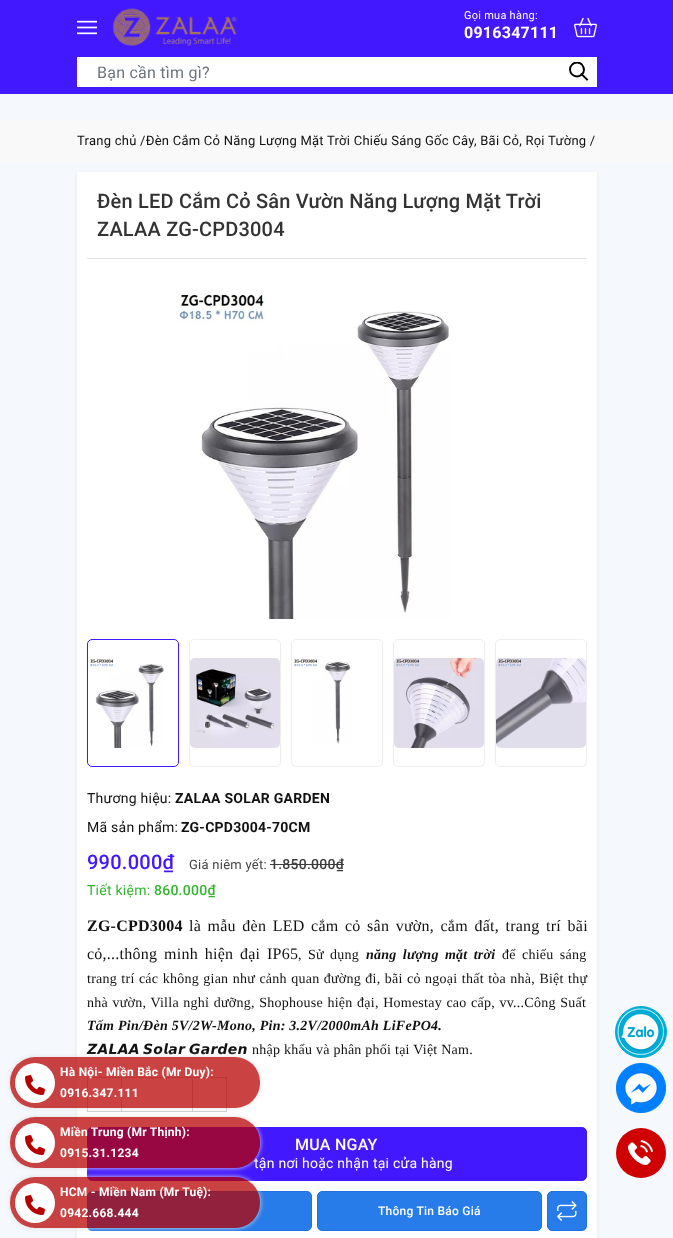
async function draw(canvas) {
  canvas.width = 673;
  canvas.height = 1238;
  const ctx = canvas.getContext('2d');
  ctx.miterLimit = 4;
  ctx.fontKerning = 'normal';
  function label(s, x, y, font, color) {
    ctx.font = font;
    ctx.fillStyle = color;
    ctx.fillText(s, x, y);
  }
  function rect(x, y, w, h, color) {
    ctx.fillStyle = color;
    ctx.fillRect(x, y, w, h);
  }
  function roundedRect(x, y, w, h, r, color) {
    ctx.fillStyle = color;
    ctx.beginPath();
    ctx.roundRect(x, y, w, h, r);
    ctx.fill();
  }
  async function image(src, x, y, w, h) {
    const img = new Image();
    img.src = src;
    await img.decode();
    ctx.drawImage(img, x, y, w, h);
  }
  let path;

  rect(0, 0, 673, 1238, '#f5f8fd');
  rect(0, 0, 673, 94, '#4218ff');
  await image('assets/img1.png', 77, 20, 20, 15);
  await image('assets/img2.png', 112, 8, 125, 38);
  ctx.letterSpacing = '0.25px';
  label('Gọi mua hàng:', 464, 19, '11px Roboto', '#fff');
  label('0916347111', 464, 38, 'bold 16px Roboto', '#fff');
  await image('assets/img3.png', 574, 17, 23, 21);
  rect(77, 57, 520, 30, '#fff');
  label('Bạn cần tìm gì?', 97, 78, '16px Roboto', '#6c757d');
  path = new Path2D('M587 79.5L581.5 74');
  ctx.strokeStyle = '#000';
  ctx.lineWidth = 1.9;
  ctx.lineCap = 'square';
  ctx.stroke(path);
  ctx.save();
  ctx.beginPath();
  ctx.rect(569, 62, 20, 20);
  ctx.clip();
  ctx.beginPath();
  ctx.arc(577, 69.5, 7, 0, 2 * Math.PI);
  ctx.stroke();
  ctx.restore();
  rect(0, 120, 673, 42, '#f9f9f9');
  label('Trang chủ /Đèn Cắm Cỏ Năng Lượng Mặt Trời Chiếu Sáng Gốc Cây, Bãi Cỏ, Rọi Tường /', 77, 145, '13px Roboto', '#111');
  ctx.fillStyle = '#00000012';
  ctx.filter = 'blur(2px)';
  ctx.beginPath();
  ctx.roundRect(77, 174, 520, 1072, 2);
  ctx.fill();
  ctx.filter = 'none';
  roundedRect(77, 172, 520, 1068, 2, '#fff');
  rect(87, 258, 500, 1, '#e5e5e5');
  ctx.letterSpacing = '0.2px';
  label('Đèn LED Cắm Cỏ Sân Vườn Năng Lượng Mặt Trời', 97, 208, '500 20px Roboto', '#333');
  label('ZALAA ZG-CPD3004', 97, 236, '500 20px Roboto', '#333');
  await image('assets/img4.png', 179, 292, 271, 327);
  ctx.beginPath();
  ctx.roundRect(87.5, 639.5, 91, 127, 4.5);
  ctx.strokeStyle = '#4218ff';
  ctx.lineWidth = 1;
  ctx.stroke();
  await image('assets/img5.png', 90, 659, 74, 89);
  ctx.beginPath();
  ctx.roundRect(189.5, 639.5, 91, 127, 4.5);
  ctx.strokeStyle = '#eee';
  ctx.stroke();
  await image('assets/img6.png', 190, 658, 90, 90);
  ctx.beginPath();
  ctx.roundRect(291.5, 639.5, 91, 127, 4.5);
  ctx.stroke();
  await image('assets/img7.png', 294, 659, 57, 85);
  ctx.beginPath();
  ctx.roundRect(393.5, 639.5, 91, 127, 4.5);
  ctx.stroke();
  await image('assets/img8.png', 394, 658, 90, 90);
  ctx.beginPath();
  ctx.roundRect(495.5, 639.5, 91, 127, 4.5);
  ctx.stroke();
  await image('assets/img9.png', 496, 658, 90, 90);
  ctx.letterSpacing = '0.25px';
  label('Thương hiệu:', 87, 803, '14px Roboto', '#111');
  label('ZALAA SOLAR GARDEN', 175, 803, 'bold 14px Roboto', '#111');
  label('Mã sản phẩm:', 87, 832, '14px Roboto', '#111');
  label('ZG-CPD3004-70CM', 181, 832, 'bold 14px Roboto', '#111');
  label('990.000₫', 87, 869, '500 20px Roboto', '#4218ff');
  label('Giá niêm yết:', 189, 869, '13px Roboto', '#444');
  label('1.850.000₫', 270, 869, '500 14px Roboto', '#3c3c3c');
  rect(270, 864, 74, 1, '#3c3c3c');
  label('Tiết kiệm:', 87, 895, '14px Roboto', '#33b530');
  label('860.000₫', 154, 895, '500 14px Roboto', '#33b530');
  label('ZG-CPD3004', 87, 931, 'bold 16px Liberation Serif', '#111');
  ctx.wordSpacing = '2.25px';
  label('là mẫu đèn LED cắm cỏ sân vườn, cắm đất, trang trí bãi', 189, 931, '16px Liberation Serif', '#111');
  ctx.wordSpacing = '2.5px';
  label('cỏ,...thông minh hiện đại IP65', 87, 959, '16px Liberation Serif', '#111');
  label(', Sử dụng', 298, 959, '14px Liberation Serif', '#111');
  label('năng lượng mặt trời', 366, 959, 'italic bold 14px Liberation Serif', '#111');
  label('để chiếu sáng', 502, 959, '14px Liberation Serif', '#111');
  ctx.wordSpacing = '0.6px';
  label('trang trí các không gian như cảnh quan đường đi, bãi cỏ ngoại thất tòa nhà, Biệt thự', 87, 983, '14px Liberation Serif', '#111');
  ctx.wordSpacing = '0.75px';
  label('nhà vườn, Villa nghỉ dưỡng, Shophouse hiện đại, Homestay cao cấp, vv...Công Suất', 87, 1007, '14px Liberation Serif', '#111');
  ctx.wordSpacing = '0px';
  label('Tấm Pin/Đèn 5V/2W-Mono, Pin: 3.2V/2000mAh LiFePO4.', 87, 1030, 'italic bold 14px Liberation Serif', '#111');
  label('𝙕𝘼𝙇𝘼𝘼', 87, 1054, 'italic bold 14px DejaVu Sans', '#111');
  label('𝙎𝙤𝙡𝙖𝙧', 143, 1054, 'italic bold 14px DejaVu Sans', '#111');
  label('𝙂𝙖𝙧𝙙𝙚𝙣', 189, 1054, 'italic bold 14px DejaVu Sans', '#111');
  label('nhập khẩu và phân phối tại Việt Nam.', 252, 1054, '14px Liberation Serif', '#111');
  ctx.strokeStyle = '#ccc';
  ctx.strokeRect(87.5, 1077.5, 34, 34);
  rect(122, 1077, 70, 1, '#ccc');
  rect(122, 1111, 70, 1, '#ccc');
  ctx.strokeRect(192.5, 1077.5, 34, 34);
  ctx.fillStyle = '#4218ff';
  ctx.beginPath();
  ctx.roundRect(87.5, 1127.5, 499, 53, 4.5);
  ctx.fill();
  ctx.strokeStyle = '#4218ff';
  ctx.stroke();
  label('MUA NGAY', 295, 1150, '500 16px Roboto', '#fff');
  label('tận nơi hoặc nhận tại cửa hàng', 254, 1168, '14px Roboto', '#fff');
  ctx.fillStyle = '#277cea';
  ctx.beginPath();
  ctx.roundRect(87.5, 1191.5, 224, 39, 4.5);
  ctx.fill();
  ctx.strokeStyle = '#1d72e0';
  ctx.stroke();
  ctx.beginPath();
  ctx.roundRect(317.5, 1191.5, 224, 39, 4.5);
  ctx.fill();
  ctx.stroke();
  label('Thông Tin Báo Giá', 378, 1215, '500 12px Roboto', '#fff');
  ctx.fillStyle = '#277cea';
  ctx.beginPath();
  ctx.roundRect(547.5, 1191.5, 39, 39, 4.5);
  ctx.fill();
  ctx.stroke();
  await image('assets/img10.png', 557, 1201, 20, 20);
  ctx.fillStyle = '#03aed5';
  ctx.beginPath();
  ctx.arc(641, 1032, 25.5, 0, 2 * Math.PI);
  ctx.fill();
  ctx.strokeStyle = '#03add4';
  ctx.stroke();
  await image('assets/img11.png', 617, 1008, 47, 47);
  await image('assets/img12.png', 616, 1063, 50, 50);
  ctx.fillStyle = '#ce0000';
  ctx.beginPath();
  ctx.arc(641, 1153, 25, 0, 2 * Math.PI);
  ctx.fill();
  await image('assets/img13.png', 628, 1140, 25, 25);
  ctx.save();
  path = new Path2D('M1 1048H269V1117H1ZM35 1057H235C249 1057 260 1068 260 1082V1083C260 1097 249 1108 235 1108H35C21 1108 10 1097 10 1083V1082C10 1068 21 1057 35 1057Z');
  ctx.clip(path, 'evenodd');
  ctx.fillStyle = '#ddd';
  ctx.filter = 'blur(2.5px)';
  ctx.beginPath();
  ctx.roundRect(10, 1057, 250, 51, 25);
  ctx.fill();
  ctx.filter = 'none';
  ctx.restore();
  roundedRect(10, 1057, 250, 51, 25, '#b70100bd');
  ctx.fillStyle = '#fff';
  ctx.beginPath();
  ctx.arc(35, 1083, 20, 0, 2 * Math.PI);
  ctx.fill();
  await image('assets/img14.png', 25, 1075, 20, 20);
  label('Hà Nội- Miền Bắc (Mr Duy):', 60, 1076, 'bold 12px Roboto', '#fff');
  label('0916.347.111', 60, 1097, 'bold 12px Roboto', '#fff');
  ctx.save();
  path = new Path2D('M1 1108H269V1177H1ZM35 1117H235C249 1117 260 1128 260 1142V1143C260 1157 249 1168 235 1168H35C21 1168 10 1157 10 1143V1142C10 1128 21 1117 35 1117Z');
  ctx.clip(path, 'evenodd');
  ctx.fillStyle = '#ddd';
  ctx.filter = 'blur(2.5px)';
  ctx.beginPath();
  ctx.roundRect(10, 1117, 250, 51, 25);
  ctx.fill();
  ctx.filter = 'none';
  ctx.restore();
  roundedRect(10, 1117, 250, 51, 25, '#b70100bd');
  ctx.fillStyle = '#fff';
  ctx.beginPath();
  ctx.arc(35, 1143, 20, 0, 2 * Math.PI);
  ctx.fill();
  await image('assets/img14.png', 25, 1135, 20, 20);
  label('Miền Trung (Mr Thịnh):', 60, 1136, 'bold 12px Roboto', '#fff');
  label('0915.31.1234', 60, 1157, 'bold 12px Roboto', '#fff');
  ctx.save();
  path = new Path2D('M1 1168H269V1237H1ZM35 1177H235C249 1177 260 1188 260 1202V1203C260 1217 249 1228 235 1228H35C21 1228 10 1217 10 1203V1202C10 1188 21 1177 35 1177Z');
  ctx.clip(path, 'evenodd');
  ctx.fillStyle = '#ddd';
  ctx.filter = 'blur(2.5px)';
  ctx.beginPath();
  ctx.roundRect(10, 1177, 250, 51, 25);
  ctx.fill();
  ctx.filter = 'none';
  ctx.restore();
  roundedRect(10, 1177, 250, 51, 25, '#b70100bd');
  ctx.fillStyle = '#fff';
  ctx.beginPath();
  ctx.arc(35, 1203, 20, 0, 2 * Math.PI);
  ctx.fill();
  await image('assets/img14.png', 25, 1195, 20, 20);
  label('HCM - Miền Nam (Mr Tuệ):', 60, 1196, 'bold 12px Roboto', '#fff');
  label('0942.668.444', 60, 1217, 'bold 12px Roboto', '#fff');
}

draw(document.querySelector('canvas'));
